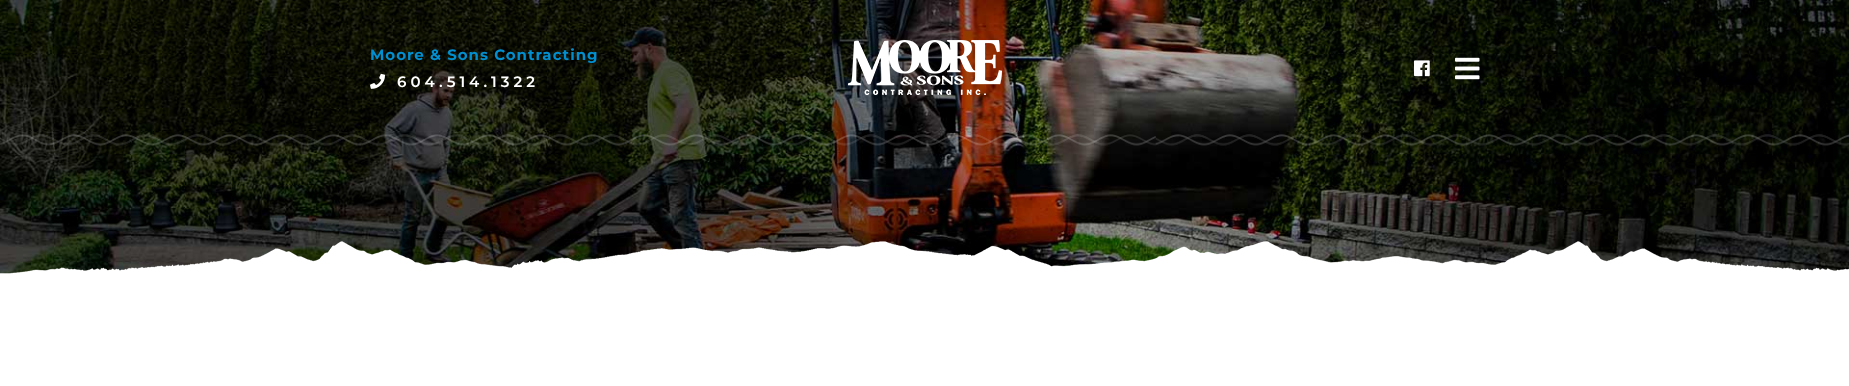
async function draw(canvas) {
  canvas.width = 1849;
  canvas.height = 386;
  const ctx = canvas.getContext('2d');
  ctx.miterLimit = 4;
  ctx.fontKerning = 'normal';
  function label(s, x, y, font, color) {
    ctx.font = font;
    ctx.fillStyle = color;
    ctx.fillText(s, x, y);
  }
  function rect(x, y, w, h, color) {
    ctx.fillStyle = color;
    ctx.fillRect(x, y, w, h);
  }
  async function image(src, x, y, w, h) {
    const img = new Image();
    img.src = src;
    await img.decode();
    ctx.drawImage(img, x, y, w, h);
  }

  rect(0, 0, 1849, 386, '#fff');
  await image('assets/img1.png', 0, 0, 1849, 274);
  await image('assets/img2.png', 0, 241, 1849, 59);
  ctx.letterSpacing = '1px';
  label('Moore & Sons Contracting', 370, 60, 'bold 15px Montserrat', '#008fd0');
  await image('assets/img3.png', 370, 73, 15, 16);
  ctx.letterSpacing = '4px';
  label('604.514.1322', 397, 87, '600 15px Montserrat', '#fff');
  await image('assets/img4.png', 848, 40, 154, 55);
  await image('assets/img5.png', 1414, 60, 16, 17);
  await image('assets/img6.png', 1455, 57, 25, 23);
  await image('assets/img7.png', 0, 134, 1849, 12);
}

draw(document.querySelector('canvas'));
